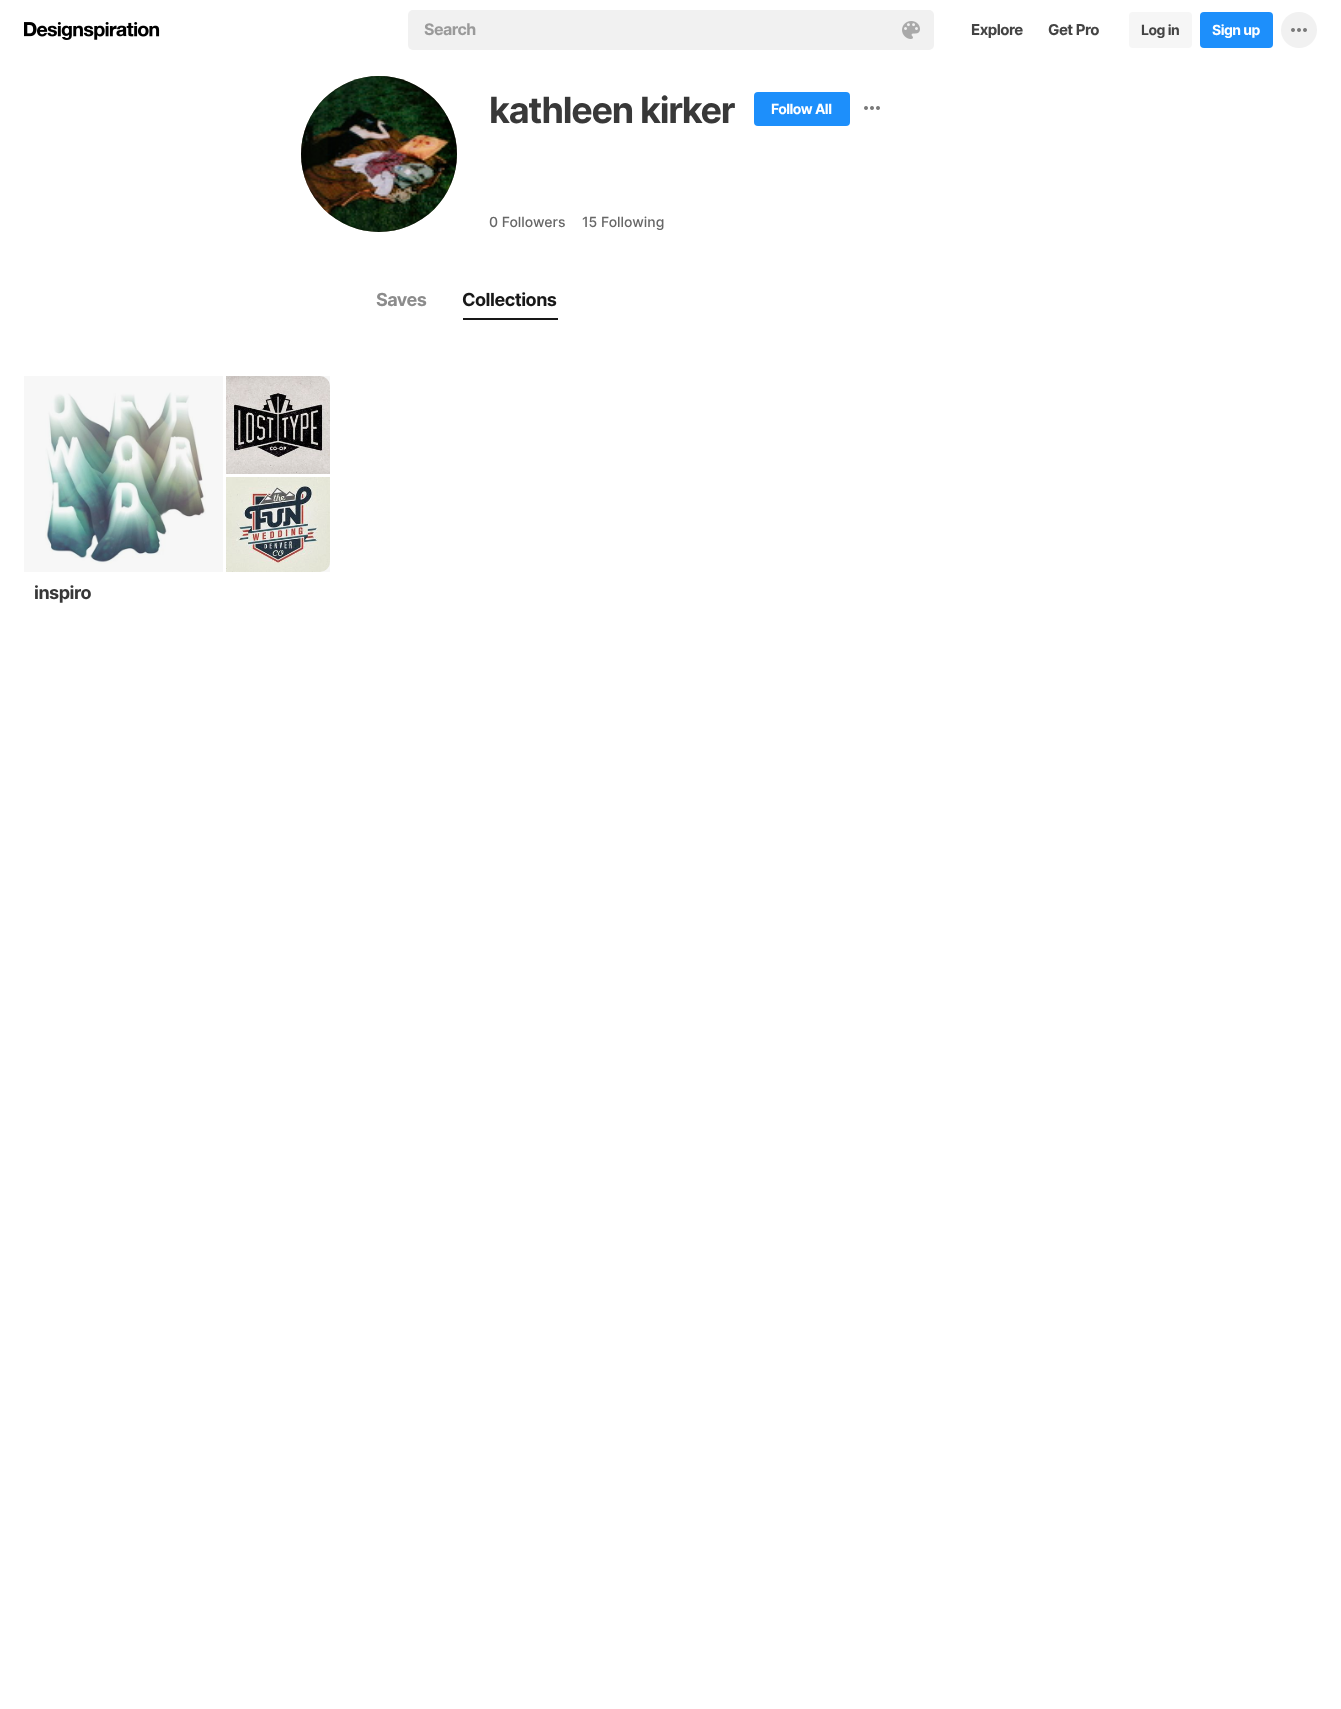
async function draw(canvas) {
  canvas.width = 1341;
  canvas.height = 1709;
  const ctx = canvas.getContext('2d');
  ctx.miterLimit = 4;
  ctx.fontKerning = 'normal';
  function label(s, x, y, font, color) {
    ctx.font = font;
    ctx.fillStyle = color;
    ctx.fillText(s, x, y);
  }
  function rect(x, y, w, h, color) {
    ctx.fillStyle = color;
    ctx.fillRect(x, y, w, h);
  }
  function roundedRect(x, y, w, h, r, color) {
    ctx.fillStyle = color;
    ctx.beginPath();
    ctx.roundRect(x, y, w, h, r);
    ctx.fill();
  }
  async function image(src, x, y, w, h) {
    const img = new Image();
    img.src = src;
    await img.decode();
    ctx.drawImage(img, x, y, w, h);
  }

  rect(0, 0, 1341, 1709, '#fff');
  await image('assets/img1.png', 24, 22, 136, 18);
  roundedRect(408, 10, 526, 40, 5, '#f1f1f1');
  ctx.letterSpacing = '-0.5px';
  label('Search', 424, 35, 'bold 16px Inter', '#9a9a9a');
  await image('assets/img2.png', 902, 21, 18, 18);
  label('Explore', 971, 35, 'bold 15px Inter', '#444');
  label('Get Pro', 1048, 35, 'bold 15px Inter', '#444');
  roundedRect(1129, 12, 63, 36, 4, '#f6f6f6');
  label('Log in', 1141, 35, 'bold 14px Inter', '#444');
  roundedRect(1200, 12, 73, 36, 4, '#1d8ffb');
  label('Sign up', 1212, 35, 'bold 14px Inter', '#fff');
  ctx.fillStyle = '#f1f1f1';
  ctx.beginPath();
  ctx.arc(1299, 30, 18, 0, 2 * Math.PI);
  ctx.fill();
  await image('assets/img3.png', 1291, 28, 16, 4);
  ctx.fillStyle = '#ab998d';
  ctx.beginPath();
  ctx.arc(379, 154, 78, 0, 2 * Math.PI);
  ctx.fill();
  await image('assets/img4.png', 301, 76, 156, 156);
  ctx.beginPath();
  ctx.arc(379, 154, 77.5, 0, 2 * Math.PI);
  ctx.strokeStyle = '#0000001a';
  ctx.stroke();
  ctx.letterSpacing = '-1.25px';
  label('kathleen kirker', 489, 123, 'bold 36px Inter', '#383838');
  roundedRect(754, 92, 96, 34, 4, '#1d8ffb');
  ctx.letterSpacing = '-0.5px';
  label('Follow All', 771, 114, 'bold 14px Inter', '#fff');
  await image('assets/img5.png', 864, 106, 16, 4);
  ctx.letterSpacing = '0px';
  label('0 Followers', 489, 227, '500 14px Inter', '#676767');
  label('15 Following', 582, 227, '500 14px Inter', '#676767');
  ctx.letterSpacing = '-0.5px';
  label('Saves', 376, 306, 'bold 18px Inter', '#8c8c8c');
  label('Collections', 462, 306, 'bold 18px Inter', '#181818');
  rect(463, 318, 95, 2, '#181818');
  await image('assets/img6.png', 45, 392, 161, 172);
  rect(24, 376, 199, 196, '#00000008');
  await image('assets/img7.png', 226, 376, 104, 98);
  rect(226, 376, 104, 98, '#00000008');
  await image('assets/img8.png', 226, 477, 104, 95);
  rect(226, 477, 104, 95, '#00000008');
  label('inspiro', 34, 599, 'bold 18px Inter', '#383838');
}

draw(document.querySelector('canvas'));
